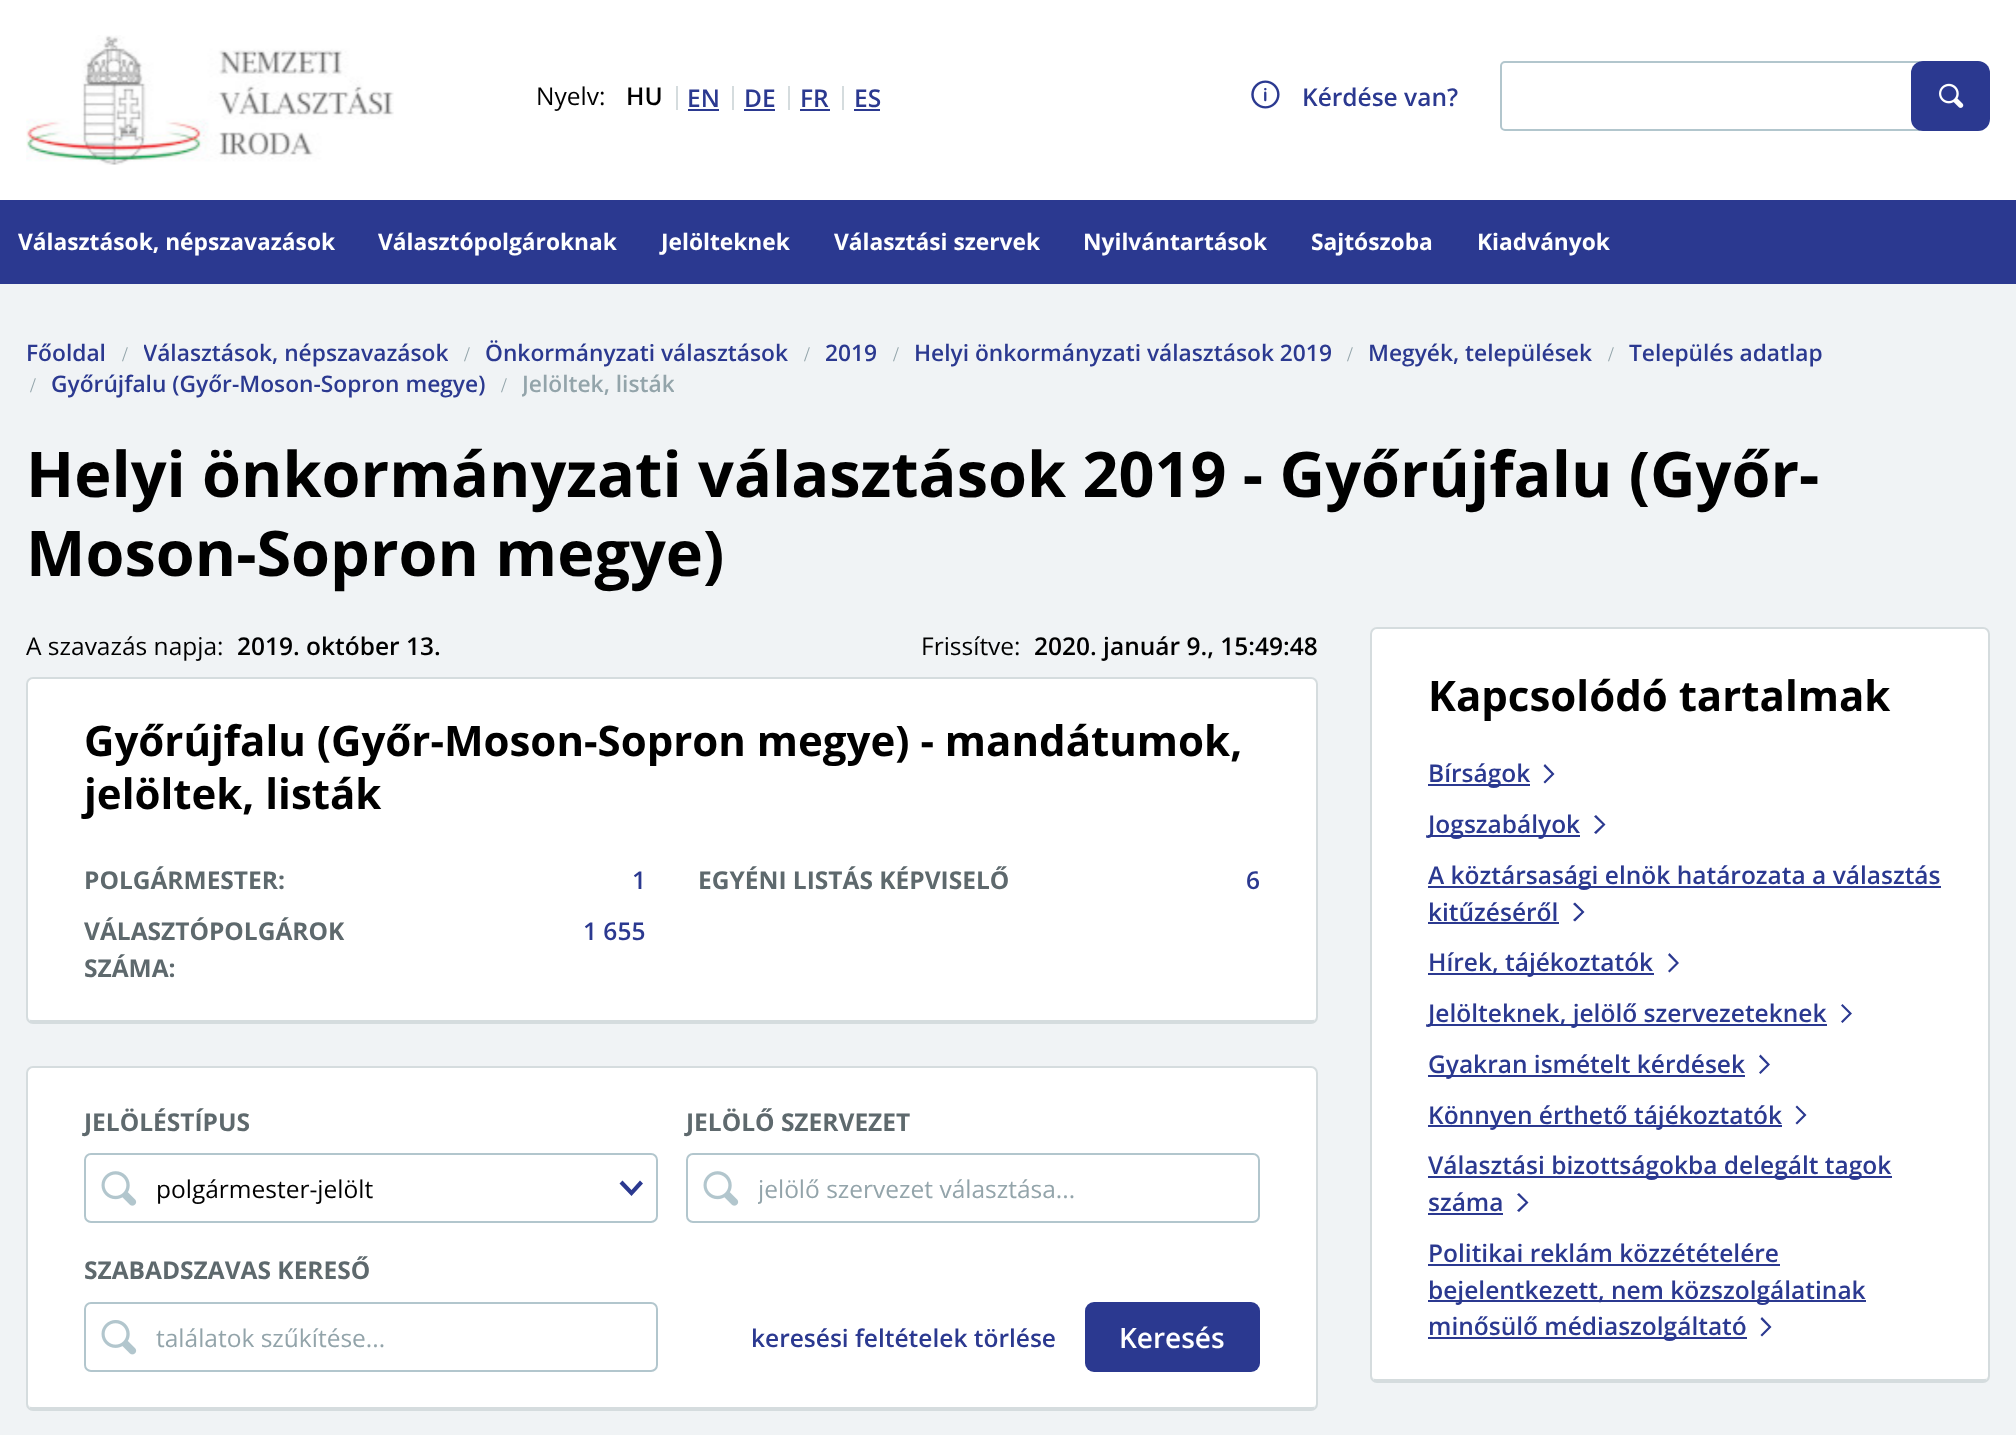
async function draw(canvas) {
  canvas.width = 2016;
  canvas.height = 1435;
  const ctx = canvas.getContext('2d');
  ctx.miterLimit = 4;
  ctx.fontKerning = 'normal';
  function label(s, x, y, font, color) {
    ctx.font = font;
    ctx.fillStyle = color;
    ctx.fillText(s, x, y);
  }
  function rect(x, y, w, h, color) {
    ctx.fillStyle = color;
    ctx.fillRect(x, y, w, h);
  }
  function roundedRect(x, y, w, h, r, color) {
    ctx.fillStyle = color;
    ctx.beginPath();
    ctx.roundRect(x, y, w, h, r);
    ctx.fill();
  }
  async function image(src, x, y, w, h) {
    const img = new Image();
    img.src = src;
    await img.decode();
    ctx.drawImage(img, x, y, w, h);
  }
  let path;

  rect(0, 0, 2016, 1435, '#f0f3f5');
  rect(0, 0, 2016, 200, '#fff');
  await image('assets/img1.png', 26, 35, 368, 130);
  label('Nyelv:', 536, 105, '24.5px Open Sans', '#000');
  label('HU', 626, 105, '600 24.5px Open Sans', '#000');
  rect(676, 86, 2, 24, '#d5dcde');
  label('EN', 687, 107, '600 24.5px Open Sans', '#2b3990');
  rect(688, 109, 31, 2, '#2b3990');
  rect(732, 86, 2, 24, '#d5dcde');
  label('DE', 744, 107, '600 24.5px Open Sans', '#2b3990');
  rect(744, 109, 31, 2, '#2b3990');
  rect(788, 86, 2, 24, '#d5dcde');
  label('FR', 800, 107, '600 24.5px Open Sans', '#2b3990');
  rect(800, 109, 30, 2, '#2b3990');
  rect(842, 86, 2, 24, '#d5dcde');
  label('ES', 854, 107, '600 24.5px Open Sans', '#2b3990');
  rect(854, 109, 26, 2, '#2b3990');
  await image('assets/img2.png', 1251, 80, 29, 29);
  label('Kérdése van?', 1302, 106, '600 24.5px Open Sans', '#2b3990');
  ctx.beginPath();
  ctx.roundRect(1501, 62, 418, 68, [4, 0, 0, 4]);
  ctx.strokeStyle = '#b2c6cd';
  ctx.lineWidth = 2;
  ctx.stroke();
  roundedRect(1911, 61, 79, 70, 12, '#2b3990');
  await image('assets/img3.png', 1939, 83, 25, 25);
  rect(0, 200, 2016, 84, '#2b3990');
  label('Választások, népszavazások', 18, 250, 'bold 22.75px Open Sans', '#fff');
  label('Választópolgároknak', 378, 250, 'bold 22.75px Open Sans', '#fff');
  label('Jelölteknek', 661, 250, 'bold 22.75px Open Sans', '#fff');
  label('Választási szervek', 834, 250, 'bold 22.75px Open Sans', '#fff');
  label('Nyilvántartások', 1083, 250, 'bold 22.75px Open Sans', '#fff');
  label('Sajtószoba', 1311, 250, 'bold 22.75px Open Sans', '#fff');
  label('Kiadványok', 1477, 250, 'bold 22.75px Open Sans', '#fff');
  label('Főoldal', 26, 361, '600 22.75px Open Sans', '#2b3990');
  label('/', 122, 361, '21px Liberation Serif', '#93a4aa');
  ctx.save();
  ctx.beginPath();
  ctx.rect(144, 336, 304, 32);
  ctx.clip();
  label('Választások, népszavazások', 143, 361, '600 22.75px Open Sans', '#2b3990');
  ctx.restore();
  label('/', 464, 361, '21px Liberation Serif', '#93a4aa');
  label('Önkormányzati választások', 485, 361, '600 22.75px Open Sans', '#2b3990');
  label('/', 804, 361, '21px Liberation Serif', '#93a4aa');
  label('2019', 825, 361, '600 22.75px Open Sans', '#2b3990');
  label('/', 893, 361, '21px Liberation Serif', '#93a4aa');
  label('Helyi önkormányzati választások 2019', 914, 361, '600 22.75px Open Sans', '#2b3990');
  label('/', 1347, 361, '21px Liberation Serif', '#93a4aa');
  label('Megyék, települések', 1368, 361, '600 22.75px Open Sans', '#2b3990');
  label('/', 1608, 361, '21px Liberation Serif', '#93a4aa');
  label('Település adatlap', 1629, 361, '600 22.75px Open Sans', '#2b3990');
  label('/', 30, 392, '21px Liberation Serif', '#93a4aa');
  label('Győrújfalu (Győr-Moson-Sopron megye)', 51, 392, '600 22.75px Open Sans', '#2b3990');
  label('/', 501, 392, '21px Liberation Serif', '#93a4aa');
  ctx.save();
  ctx.beginPath();
  ctx.rect(522, 368, 152, 31);
  ctx.clip();
  label('Jelöltek, listák', 522, 392, '600 22.75px Open Sans', '#93a4aa');
  ctx.restore();
  label('Helyi önkormányzati választások 2019 - Győrújfalu (Győr-', 26, 497, 'bold 63px Open Sans', '#000');
  label('Moson-Sopron megye)', 26, 576, 'bold 63px Open Sans', '#000');
  label('A szavazás napja:', 26, 655, '24.5px Open Sans', '#000');
  label('2019. október 13.', 237, 655, '600 24.5px Open Sans', '#000');
  label('Frissítve:', 921, 655, '24.5px Open Sans', '#000');
  label('2020. január 9., 15:49:48', 1034, 655, '600 24.5px Open Sans', '#000');
  ctx.fillStyle = '#fff';
  path = new Path2D('M33 679H1311C1314 679 1316 681 1316 684V1017C1316 1019 1314 1020 1311 1020H33C30 1020 28 1019 28 1017V684C28 681 30 679 33 679Z');
  ctx.fill(path);
  ctx.beginPath();
  ctx.roundRect(27, 678, 1290, 345, 6);
  ctx.strokeStyle = '#d5dcde';
  ctx.stroke();
  rect(30, 1020, 1284, 2, '#d5dcde');
  label('Győrújfalu (Győr-Moson-Sopron megye) - mandátumok,', 84, 756, 'bold 42px Open Sans', '#000');
  label('jelöltek, listák', 84, 809, 'bold 42px Open Sans', '#000');
  label('POLGÁRMESTER:', 84, 889, 'bold 24.5px Open Sans', '#5e696d');
  label('1', 632, 889, '600 24.5px Open Sans', '#2b3990');
  label('EGYÉNI LISTÁS KÉPVISELŐ', 698, 889, 'bold 24.5px Open Sans', '#5e696d');
  label('6', 1246, 889, '600 24.5px Open Sans', '#2b3990');
  label('VÁLASZTÓPOLGÁROK', 84, 940, 'bold 24.5px Open Sans', '#5e696d');
  label('SZÁMA:', 84, 977, 'bold 24.5px Open Sans', '#5e696d');
  label('1 655', 583, 940, '600 24.5px Open Sans', '#2b3990');
  ctx.fillStyle = '#fff';
  path = new Path2D('M33 1068H1311C1314 1068 1316 1070 1316 1073V1404C1316 1405 1314 1407 1311 1407H33C30 1407 28 1405 28 1404V1073C28 1070 30 1068 33 1068Z');
  ctx.fill(path);
  ctx.beginPath();
  ctx.roundRect(27, 1067, 1290, 343, 6);
  ctx.stroke();
  rect(30, 1407, 1284, 2, '#d5dcde');
  label('JELÖLÉSTÍPUS', 84, 1131, 'bold 24.5px Open Sans', '#5e696d');
  ctx.beginPath();
  ctx.roundRect(85, 1154, 572, 68, 6);
  ctx.strokeStyle = '#b2c6cd';
  ctx.stroke();
  await image('assets/img4.png', 101, 1171, 36, 35);
  label('polgármester-jelölt', 156, 1198, '24.5px Open Sans', '#000');
  ctx.fillStyle = '#2b3990';
  path = new Path2D('M640 1180.5L643 1183.5L631.5 1196L619.5 1183.5L622.5 1180.5L631.5 1190Z');
  ctx.fill(path);
  label('JELÖLŐ SZERVEZET', 686, 1131, 'bold 24.5px Open Sans', '#5e696d');
  ctx.beginPath();
  ctx.roundRect(687, 1154, 572, 68, 6);
  ctx.stroke();
  await image('assets/img4.png', 703, 1171, 36, 35);
  ctx.save();
  ctx.beginPath();
  ctx.rect(758, 1173, 465, 33);
  ctx.clip();
  label('jelölő szervezet választása...', 758, 1198, '24.5px Open Sans', '#93a4aa');
  ctx.restore();
  label('SZABADSZAVAS KERESŐ', 84, 1279, 'bold 24.5px Open Sans', '#5e696d');
  ctx.beginPath();
  ctx.roundRect(85, 1303, 572, 68, 6);
  ctx.stroke();
  await image('assets/img5.png', 101, 1320, 36, 35);
  label('találatok szűkítése...', 156, 1347, '24.5px Open Sans', '#93a4aa');
  label('keresési feltételek törlése', 751, 1347, '600 24.5px Open Sans', '#2b3990');
  roundedRect(1085, 1302, 175, 70, 9, '#2b3990');
  label('Keresés', 1119, 1348, '600 28px Open Sans', '#fff');
  path = new Path2D('M1377 628H1983C1986 628 1988 631 1988 634V1376C1988 1377 1986 1379 1983 1379H1377C1374 1379 1372 1377 1372 1376V634C1372 631 1374 628 1377 628Z');
  ctx.fill(path);
  ctx.beginPath();
  ctx.roundRect(1371, 628, 618, 754, 6);
  ctx.strokeStyle = '#d5dcde';
  ctx.stroke();
  rect(1374, 1379, 612, 2, '#d5dcde');
  label('Kapcsolódó tartalmak', 1428, 711, 'bold 42px Open Sans', '#000');
  rect(1428, 784, 102, 2, '#2b3990');
  label('Bírságok', 1428, 782, '600 24.5px Open Sans', '#2b3990');
  path = new Path2D('M1554.5 774L1545 783.5L1543.5 782L1551.5 774L1543.5 766L1545 764Z');
  ctx.fill(path);
  rect(1428, 835, 152, 2, '#2b3990');
  label('Jogszabályok', 1428, 833, '600 24.5px Open Sans', '#2b3990');
  path = new Path2D('M1605.5 824.5L1596 834L1594 832.5L1602.5 824.5L1594 816.5L1596 815Z');
  ctx.fill(path);
  rect(1428, 886, 513, 2, '#2b3990');
  label('A köztársasági elnök határozata a választás', 1428, 884, '600 24.5px Open Sans', '#2b3990');
  label('kitűzéséről', 1428, 921, '600 24.5px Open Sans', '#2b3990');
  rect(1428, 922, 131, 2, '#2b3990');
  path = new Path2D('M1584.5 912L1575 921.5L1573 920L1581.5 912L1573 904L1575 902.5Z');
  ctx.fill(path);
  rect(1428, 973, 226, 2, '#2b3990');
  label('Hírek, tájékoztatók', 1428, 971, '600 24.5px Open Sans', '#2b3990');
  path = new Path2D('M1679 963L1669.5 972.5L1668 971L1676 963L1668 955L1669.5 953Z');
  ctx.fill(path);
  rect(1428, 1024, 399, 2, '#2b3990');
  label('Jelölteknek, jelölő szervezeteknek', 1428, 1022, '600 24.5px Open Sans', '#2b3990');
  path = new Path2D('M1852 1013.5L1842.5 1023L1841 1021.5L1849 1013.5L1841 1005.5L1842.5 1004Z');
  ctx.fill(path);
  rect(1428, 1075, 317, 2, '#2b3990');
  label('Gyakran ismételt kérdések', 1428, 1073, '600 24.5px Open Sans', '#2b3990');
  path = new Path2D('M1770 1064.5L1760.5 1074L1759 1072.5L1767 1064.5L1759 1056.5L1760.5 1054.5Z');
  ctx.fill(path);
  rect(1428, 1125, 354, 2, '#2b3990');
  label('Könnyen érthető tájékoztatók', 1428, 1124, '600 24.5px Open Sans', '#2b3990');
  path = new Path2D('M1806.5 1115L1797 1124.5L1795.5 1123L1803.5 1115L1795.5 1107L1797 1105.5Z');
  ctx.fill(path);
  rect(1428, 1176, 464, 2, '#2b3990');
  label('Választási bizottságokba delegált tagok', 1428, 1174, '600 24.5px Open Sans', '#2b3990');
  label('száma', 1428, 1211, '600 24.5px Open Sans', '#2b3990');
  rect(1428, 1213, 75, 2, '#2b3990');
  path = new Path2D('M1528.5 1202.5L1519 1212L1517 1210.5L1525.5 1202.5L1517 1194.5L1519 1193Z');
  ctx.fill(path);
  label('Politikai reklám közzétételére', 1428, 1262, '600 24.5px Open Sans', '#2b3990');
  rect(1428, 1264, 352, 2, '#2b3990');
  rect(1428, 1300, 438, 2, '#2b3990');
  label('bejelentkezett, nem közszolgálatinak', 1428, 1299, '600 24.5px Open Sans', '#2b3990');
  rect(1428, 1337, 319, 2, '#2b3990');
  label('minősülő médiaszolgáltató', 1428, 1335, '600 24.5px Open Sans', '#2b3990');
  path = new Path2D('M1771.5 1327L1762 1336.5L1760.5 1335L1768.5 1327L1760.5 1319L1762 1317Z');
  ctx.fill(path);
}

draw(document.querySelector('canvas'));
